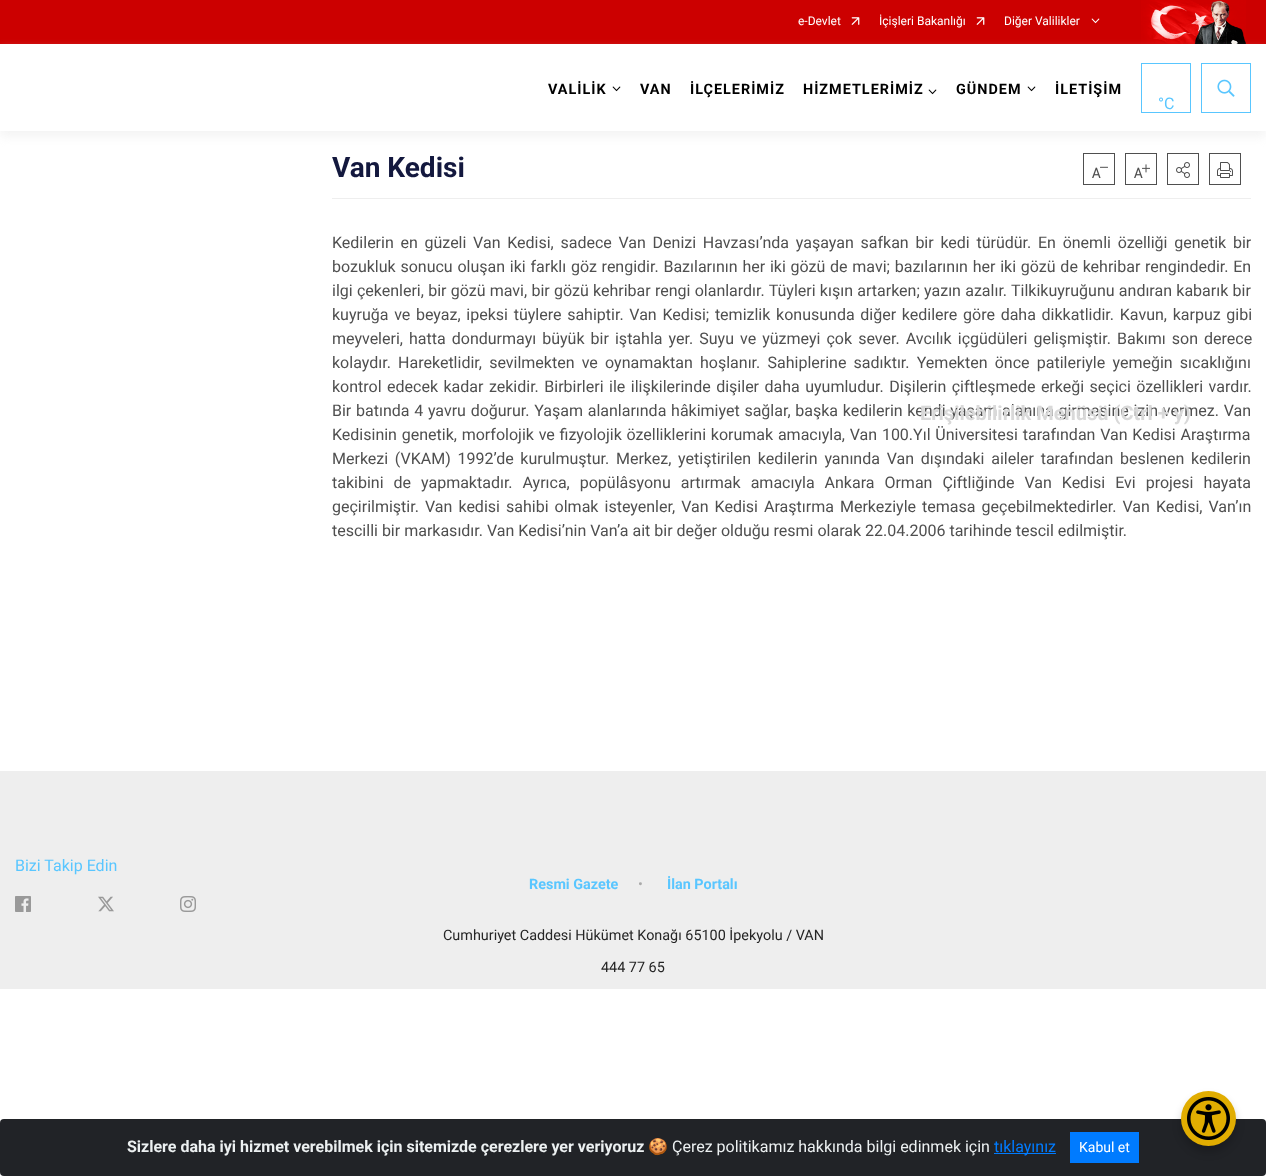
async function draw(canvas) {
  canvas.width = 1266;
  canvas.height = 1176;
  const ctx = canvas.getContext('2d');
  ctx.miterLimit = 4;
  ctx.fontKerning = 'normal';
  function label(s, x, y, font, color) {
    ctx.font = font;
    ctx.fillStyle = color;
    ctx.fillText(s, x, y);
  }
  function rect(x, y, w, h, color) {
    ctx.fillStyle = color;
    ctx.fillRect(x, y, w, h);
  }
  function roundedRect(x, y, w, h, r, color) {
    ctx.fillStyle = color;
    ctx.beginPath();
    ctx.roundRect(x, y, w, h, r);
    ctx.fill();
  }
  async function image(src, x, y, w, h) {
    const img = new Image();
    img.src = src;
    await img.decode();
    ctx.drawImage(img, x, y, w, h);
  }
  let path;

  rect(0, 0, 1266, 1176, '#fff');
  rect(0, 0, 1266, 44, '#c00');
  label('e-Devlet', 798, 25, '12px Roboto', '#fff');
  await image('assets/img1.png', 851, 17, 9, 8);
  label('İçişleri Bakanlığı', 879, 25, '12px Roboto', '#fff');
  await image('assets/img1.png', 976, 17, 9, 8);
  label('Diğer Valilikler', 1004, 25, '12px Roboto', '#fff');
  await image('assets/img2.png', 1091, 18, 9, 6);
  await image('assets/img3.png', 1141, 0, 105, 44);
  ctx.save();
  path = new Path2D('M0 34H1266V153H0ZM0 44H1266V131H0Z');
  ctx.clip(path, 'evenodd');
  ctx.fillStyle = '#eeeeee9e';
  ctx.filter = 'blur(5px)';
  ctx.beginPath();
  ctx.rect(0, 50, 1266, 87);
  ctx.fill();
  ctx.filter = 'none';
  ctx.restore();
  ctx.letterSpacing = '1px';
  label('VALİLİK', 548, 94, 'bold 14.4px Roboto', '#000');
  await image('assets/img4.png', 612, 86, 9, 6);
  label('VAN', 640, 94, 'bold 14.4px Roboto', '#000');
  label('İLÇELERİMİZ', 690, 94, 'bold 14.4px Roboto', '#000');
  label('HİZMETLERİMİZ', 803, 94, 'bold 14.4px Roboto', '#000');
  await image('assets/img4.png', 928, 89, 9, 6);
  label('GÜNDEM', 956, 94, 'bold 14.4px Roboto', '#000');
  await image('assets/img4.png', 1027, 86, 9, 6);
  label('İLETİŞİM', 1055, 94, 'bold 14.4px Roboto', '#000');
  ctx.strokeStyle = '#59c6ff';
  ctx.strokeRect(1141.5, 63.5, 49, 49);
  ctx.letterSpacing = '0px';
  label('°C', 1158, 109, '16px Roboto', '#59c6ff');
  ctx.strokeRect(1201.5, 63.5, 49, 49);
  await image('assets/img5.png', 1217, 79, 18, 18);
  rect(332, 198, 919, 1, '#eee');
  label('Van Kedisi', 332, 177, 'bold 28px Roboto', '#13183e');
  ctx.strokeStyle = '#4f4f4f';
  ctx.strokeRect(1083.5, 153.5, 31, 31);
  await image('assets/img6.png', 1092, 166, 16, 12);
  ctx.strokeRect(1125.5, 153.5, 31, 31);
  await image('assets/img7.png', 1134, 164, 16, 14);
  ctx.strokeRect(1167.5, 153.5, 31, 31);
  await image('assets/img8.png', 1176, 162, 14, 16);
  ctx.strokeRect(1209.5, 153.5, 31, 31);
  await image('assets/img9.png', 1217, 162, 16, 16);
  ctx.wordSpacing = '2.75px';
  label('Kedilerin en güzeli Van Kedisi, sadece Van Denizi Havzası’nda yaşayan safkan bir kedi türüdür. En önemli özelliği genetik bir', 332, 248, '16px Roboto', '#4f4f4f');
  ctx.wordSpacing = '0.8px';
  label('bozukluk sonucu oluşan iki farklı göz rengidir. Bazılarının her iki gözü de mavi; bazılarının her iki gözü de kehribar rengindedir. En', 332, 272, '16px Roboto', '#4f4f4f');
  ctx.wordSpacing = '0.3px';
  label('ilgi çekenleri, bir gözü mavi, bir gözü kehribar rengi olanlardır. Tüyleri kışın artarken; yazın azalır. Tilkikuyruğunu andıran kabarık bir', 332, 296, '16px Roboto', '#4f4f4f');
  ctx.wordSpacing = '1.75px';
  label('kuyruğa ve beyaz, ipeksi tüylere sahiptir. Van Kedisi; temizlik konusunda diğer kedilere göre daha dikkatlidir. Kavun, karpuz gibi', 332, 320, '16px Roboto', '#4f4f4f');
  ctx.wordSpacing = '2.1px';
  label('meyveleri, hatta dondurmayı büyük bir iştahla yer. Suyu ve yüzmeyi çok sever. Avcılık içgüdüleri gelişmiştir. Bakımı son derece', 332, 344, '16px Roboto', '#4f4f4f');
  ctx.wordSpacing = '3.25px';
  label('kolaydır. Hareketlidir, sevilmekten ve oynamaktan hoşlanır. Sahiplerine sadıktır. Yemekten önce patileriyle yemeğin sıcaklığını', 332, 368, '16px Roboto', '#4f4f4f');
  ctx.wordSpacing = '1.5px';
  label('kontrol edecek kadar zekidir. Birbirleri ile ilişkilerinde dişiler daha uyumludur. Dişilerin çiftleşmede erkeği seçici özellikleri vardır.', 332, 392, '16px Roboto', '#4f4f4f');
  ctx.wordSpacing = '0.75px';
  label('Bir batında 4 yavru doğurur. Yaşam alanlarında hâkimiyet sağlar, başka kedilerin kendi yaşam alanına girmesine izin vermez. Van', 332, 416, '16px Roboto', '#4f4f4f');
  ctx.wordSpacing = '0.8px';
  label('Kedisinin genetik, morfolojik ve fizyolojik özelliklerini korumak amacıyla, Van 100.Yıl Üniversitesi tarafından Van Kedisi Araştırma', 332, 440, '16px Roboto', '#4f4f4f');
  ctx.wordSpacing = '2.75px';
  label('Merkezi (VKAM) 1992’de kurulmuştur. Merkez, yetiştirilen kedilerin yanında Van dışındaki aileler tarafından beslenen kedilerin', 332, 464, '16px Roboto', '#4f4f4f');
  ctx.wordSpacing = '6px';
  label('takibini de yapmaktadır. Ayrıca, popülâsyonu artırmak amacıyla Ankara Orman Çiftliğinde Van Kedisi Evi projesi hayata', 332, 488, '16px Roboto', '#4f4f4f');
  ctx.wordSpacing = '2.1px';
  label('geçirilmiştir. Van kedisi sahibi olmak isteyenler, Van Kedisi Araştırma Merkeziyle temasa geçebilmektedirler. Van Kedisi, Van’ın', 332, 512, '16px Roboto', '#4f4f4f');
  ctx.wordSpacing = '0px';
  label('tescilli bir markasıdır. Van Kedisi’nin Van’a ait bir değer olduğu resmi olarak 22.04.2006 tarihinde tescil edilmiştir.', 332, 536, '16px Roboto', '#4f4f4f');
  rect(0, 771, 1266, 218, '#eee');
  label('Bizi Takip Edin', 15, 871, '16px Roboto', '#59c6ff');
  await image('assets/img10.png', 15, 896, 16, 16);
  await image('assets/img11.png', 98, 896, 16, 16);
  await image('assets/img12.png', 180, 896, 16, 16);
  label('Resmi Gazete', 529, 889, 'bold 14.4px Roboto', '#59c6ff');
  label('•', 638, 889, '14.4px Roboto', '#aaa');
  label('İlan Portalı', 667, 889, 'bold 14.4px Roboto', '#59c6ff');
  label('Cumhuriyet Caddesi Hükümet Konağı 65100 İpekyolu / VAN', 443, 940, '14.4px Roboto', '#252525');
  label('444 77 65', 601, 972, '14.4px Roboto', '#252525');
  label('Erişilebilirlik Menüsü (Ctrl + y)', 920, 420, 'bold 20px Roboto', '#d9d9d9');
  roundedRect(0, 1119, 1266, 57, 4, '#212327');
  ctx.fillStyle = '#00000033';
  ctx.filter = 'blur(4px)';
  ctx.beginPath();
  ctx.roundRect(1181, 1097, 55, 55, 27.5);
  ctx.fill();
  ctx.filter = 'none';
  ctx.fillStyle = '#e1ad01';
  ctx.beginPath();
  ctx.arc(1208.5, 1118.5, 27.5, 0, 2 * Math.PI);
  ctx.fill();
  await image('assets/img13.png', 1187, 1097, 43, 43);
  label('Sizlere daha iyi hizmet verebilmek için sitemizde çerezlere yer veriyoruz', 127, 1152, 'bold 16px Roboto', '#ecf0f1');
  label('🍪', 648, 1152, '16px Noto Color Emoji', '#ecf0f1');
  label('Çerez politikamız hakkında bilgi edinmek için', 672, 1152, '16px Roboto', '#ecf0f1');
  rect(994, 1153, 62, 1, '#007bff');
  label('tıklayınız', 994, 1152, '16px Roboto', '#007bff');
  rect(1070, 1132, 69, 31, '#007bff');
  label('Kabul et', 1079, 1152, '14px Roboto', '#fff');
}

draw(document.querySelector('canvas'));
